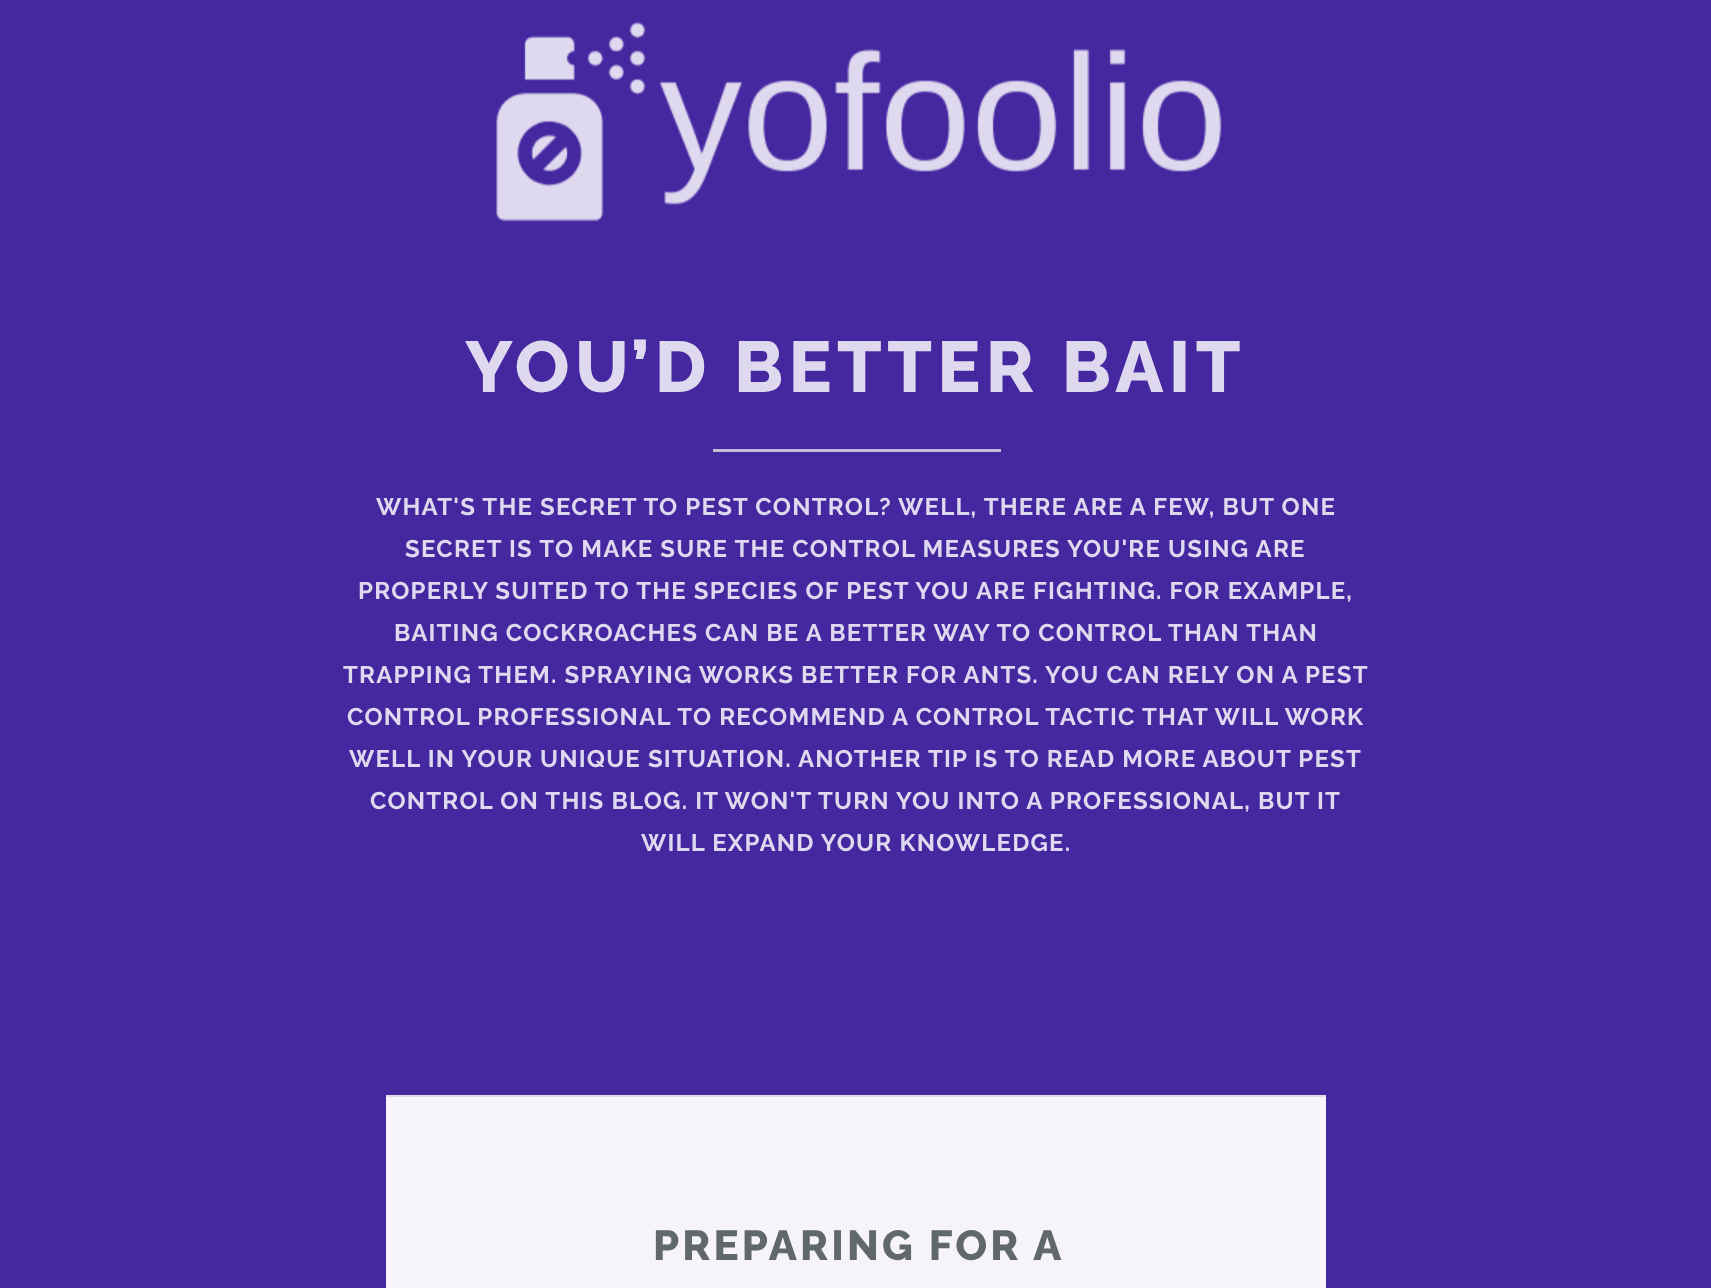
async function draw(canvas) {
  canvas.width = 1711;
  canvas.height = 1288;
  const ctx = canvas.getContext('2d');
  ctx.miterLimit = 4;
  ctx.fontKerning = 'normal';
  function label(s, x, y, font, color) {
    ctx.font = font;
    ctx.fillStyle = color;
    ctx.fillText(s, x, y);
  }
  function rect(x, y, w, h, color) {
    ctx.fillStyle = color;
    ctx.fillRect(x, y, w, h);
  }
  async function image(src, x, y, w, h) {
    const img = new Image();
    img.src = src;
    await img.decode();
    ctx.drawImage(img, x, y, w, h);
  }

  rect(0, 0, 1711, 1288, '#4527a0');
  await image('assets/img1.png', 496, 21, 726, 201);
  ctx.letterSpacing = '5.4px';
  label('YOU’D BETTER BAIT', 465, 392, '800 72px Raleway', '#ded9ee');
  rect(713, 449, 288, 3, '#c2bdd2');
  ctx.letterSpacing = '1.2px';
  label('WHAT\'S THE SECRET TO PEST CONTROL? WELL, THERE ARE A FEW, BUT ONE', 376, 515, 'bold 24px Raleway', '#ded9ee');
  label('SECRET IS TO MAKE SURE THE CONTROL MEASURES YOU\'RE USING ARE', 405, 557, 'bold 24px Raleway', '#ded9ee');
  label('PROPERLY SUITED TO THE SPECIES OF PEST YOU ARE FIGHTING. FOR EXAMPLE,', 358, 599, 'bold 24px Raleway', '#ded9ee');
  label('BAITING COCKROACHES CAN BE A BETTER WAY TO CONTROL THAN THAN', 394, 641, 'bold 24px Raleway', '#ded9ee');
  label('TRAPPING THEM. SPRAYING WORKS BETTER FOR ANTS. YOU CAN RELY ON A PEST', 343, 683, 'bold 24px Raleway', '#ded9ee');
  label('CONTROL PROFESSIONAL TO RECOMMEND A CONTROL TACTIC THAT WILL WORK', 347, 725, 'bold 24px Raleway', '#ded9ee');
  label('WELL IN YOUR UNIQUE SITUATION. ANOTHER TIP IS TO READ MORE ABOUT PEST', 349, 767, 'bold 24px Raleway', '#ded9ee');
  label('CONTROL ON THIS BLOG. IT WON\'T TURN YOU INTO A PROFESSIONAL, BUT IT', 370, 809, 'bold 24px Raleway', '#ded9ee');
  label('WILL EXPAND YOUR KNOWLEDGE.', 641, 851, 'bold 24px Raleway', '#ded9ee');
  rect(386, 1097, 940, 191, '#f6f4fa');
  rect(386, 1095, 940, 2, '#ddd');
  ctx.letterSpacing = '3.1px';
  label('PREPARING FOR A', 653, 1260, '800 42px Raleway', '#61686b');
}

draw(document.querySelector('canvas'));
